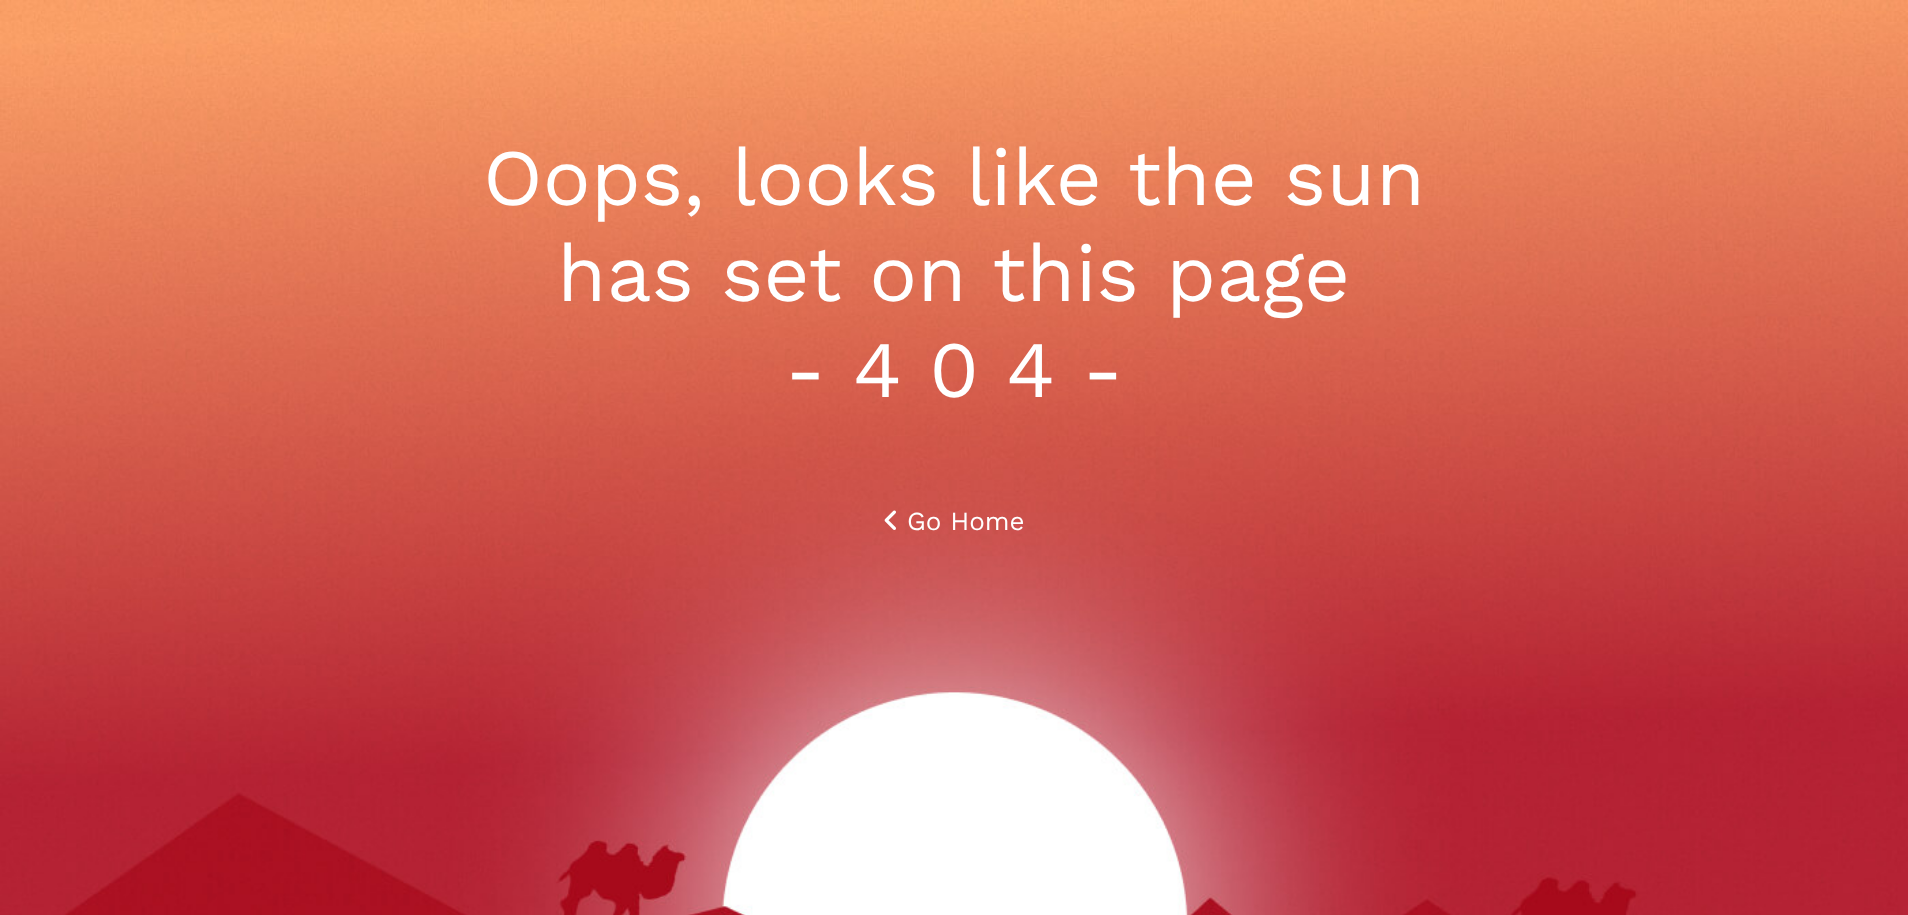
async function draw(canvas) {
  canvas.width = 1908;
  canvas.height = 915;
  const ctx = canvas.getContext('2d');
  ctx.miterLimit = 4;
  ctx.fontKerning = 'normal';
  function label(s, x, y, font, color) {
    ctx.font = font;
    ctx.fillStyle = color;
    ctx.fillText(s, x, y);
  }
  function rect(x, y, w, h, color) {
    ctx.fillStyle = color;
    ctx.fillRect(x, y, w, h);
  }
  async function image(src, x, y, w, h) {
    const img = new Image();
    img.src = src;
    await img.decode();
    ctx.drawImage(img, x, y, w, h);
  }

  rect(0, 0, 1908, 915, '#fff');
  await image('assets/img1.png', 0, 0, 1908, 915);
  label('Oops, looks like the sun', 483, 205, '80px Work Sans', '#fff');
  label('has set on this page', 557, 301, '80px Work Sans', '#fff');
  label('- 4 0 4 -', 785, 397, '80px Work Sans', '#fff');
  await image('assets/img2.png', 884, 510, 12, 20);
  label('Go Home', 907, 530, '26px Work Sans', '#fff');
}

draw(document.querySelector('canvas'));
